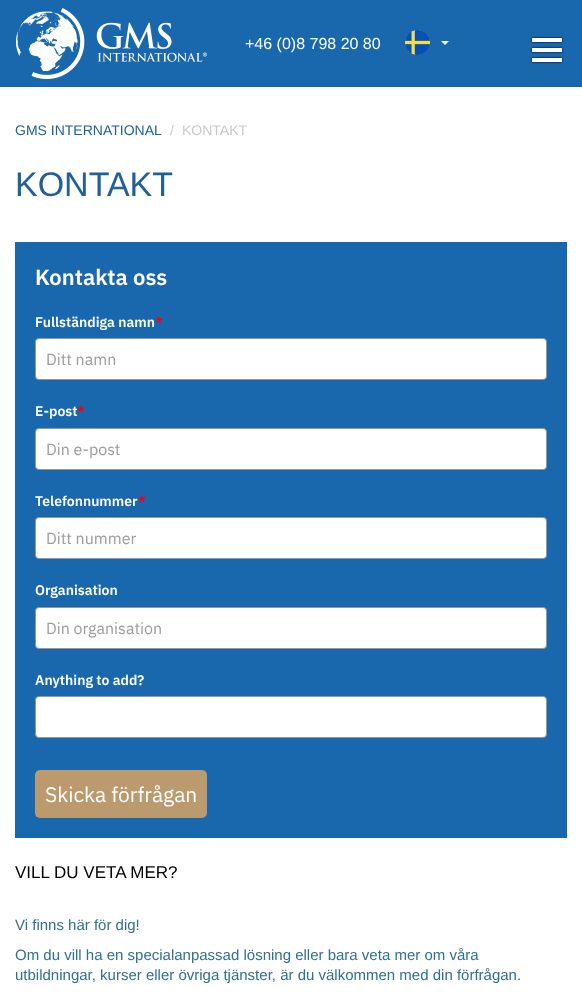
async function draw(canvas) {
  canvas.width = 582;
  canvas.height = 996;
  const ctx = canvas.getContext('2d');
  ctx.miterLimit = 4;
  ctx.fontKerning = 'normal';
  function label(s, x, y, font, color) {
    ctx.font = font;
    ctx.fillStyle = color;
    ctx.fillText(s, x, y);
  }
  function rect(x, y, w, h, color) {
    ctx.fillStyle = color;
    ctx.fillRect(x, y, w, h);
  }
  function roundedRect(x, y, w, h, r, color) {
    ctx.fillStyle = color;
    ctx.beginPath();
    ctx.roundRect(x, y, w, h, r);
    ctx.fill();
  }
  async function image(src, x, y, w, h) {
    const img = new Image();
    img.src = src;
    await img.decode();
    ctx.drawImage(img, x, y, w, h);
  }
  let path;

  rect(0, 0, 582, 996, '#fff');
  rect(0, 0, 582, 87, '#1968ae');
  await image('assets/img1.png', 15, 8, 192, 71);
  label('+46 (0)8 798 20 80', 245, 49, '16px Liberation Sans', '#fff');
  ctx.fillStyle = '#000';
  ctx.filter = 'blur(1px)';
  ctx.beginPath();
  ctx.rect(532, 38, 30, 4);
  ctx.fill();
  ctx.filter = 'none';
  rect(532, 38, 30, 4, '#fff');
  ctx.fillStyle = '#000';
  ctx.filter = 'blur(1px)';
  ctx.beginPath();
  ctx.rect(532, 48, 30, 4);
  ctx.fill();
  ctx.filter = 'none';
  rect(532, 48, 30, 4, '#fff');
  ctx.fillStyle = '#000';
  ctx.filter = 'blur(1px)';
  ctx.beginPath();
  ctx.rect(532, 58, 30, 4);
  ctx.fill();
  ctx.filter = 'none';
  rect(532, 58, 30, 4, '#fff');
  await image('assets/img2.png', 405, 30, 25, 25);
  path = new Path2D('M441 41H449L445 45Z');
  ctx.fill(path);
  label('GMS INTERNATIONAL', 15, 135, '14px Liberation Sans', '#206097');
  label('/', 170, 135, '14px Liberation Sans', '#cac9c9');
  label('KONTAKT', 182, 135, '14px Liberation Sans', '#cac9c9');
  label('KONTAKT', 15, 196, '34px Liberation Sans', '#206097');
  rect(15, 242, 552, 596, '#1968ae');
  label('Kontakta oss', 35, 285, '600 22px IBM Plex Sans', '#fff');
  label('Fullständiga namn', 35, 327, '600 14px IBM Plex Sans', '#fff');
  label('*', 155, 327, '600 14px IBM Plex Sans', '#f00');
  ctx.fillStyle = '#fff';
  ctx.beginPath();
  ctx.roundRect(35.5, 338.5, 511, 41, 3.5);
  ctx.fill();
  ctx.strokeStyle = '#979797';
  ctx.stroke();
  label('Ditt namn', 46, 365, '16px IBM Plex Sans', '#9c9c9c');
  label('E-post', 35, 416, '600 14px IBM Plex Sans', '#fff');
  label('*', 77, 416, '600 14px IBM Plex Sans', '#f00');
  ctx.fillStyle = '#fff';
  ctx.beginPath();
  ctx.roundRect(35.5, 428.5, 511, 41, 3.5);
  ctx.fill();
  ctx.stroke();
  label('Din e-post', 46, 455, '16px IBM Plex Sans', '#9c9c9c');
  label('Telefonnummer', 35, 506, '600 14px IBM Plex Sans', '#fff');
  label('*', 138, 506, '600 14px IBM Plex Sans', '#f00');
  ctx.fillStyle = '#fff';
  ctx.beginPath();
  ctx.roundRect(35.5, 517.5, 511, 41, 3.5);
  ctx.fill();
  ctx.stroke();
  label('Ditt nummer', 46, 544, '16px IBM Plex Sans', '#9c9c9c');
  label('Organisation', 35, 595, '600 14px IBM Plex Sans', '#fff');
  ctx.beginPath();
  ctx.roundRect(35.5, 607.5, 511, 41, 3.5);
  ctx.fill();
  ctx.stroke();
  label('Din organisation', 46, 634, '16px IBM Plex Sans', '#9c9c9c');
  label('Anything to add?', 35, 685, '600 14px IBM Plex Sans', '#fff');
  ctx.beginPath();
  ctx.roundRect(35.5, 696.5, 511, 41, 3.5);
  ctx.fill();
  ctx.stroke();
  roundedRect(35, 770, 172, 48, 5, '#bb9a6d');
  label('Skicka förfrågan', 45, 802, '21px IBM Plex Sans', '#fff');
  label('VILL DU VETA MER?', 15, 878, '17px Liberation Sans', '#000');
  label('Vi finns här för dig!', 15, 930, '15px Liberation Sans', '#31708f');
  label('Om du vill ha en specialanpassad lösning eller bara veta mer om våra', 15, 960, '15px Liberation Sans', '#31708f');
  label('utbildningar, kurser eller övriga tjänster, är du välkommen med din förfrågan.', 15, 980, '15px Liberation Sans', '#31708f');
}

draw(document.querySelector('canvas'));
